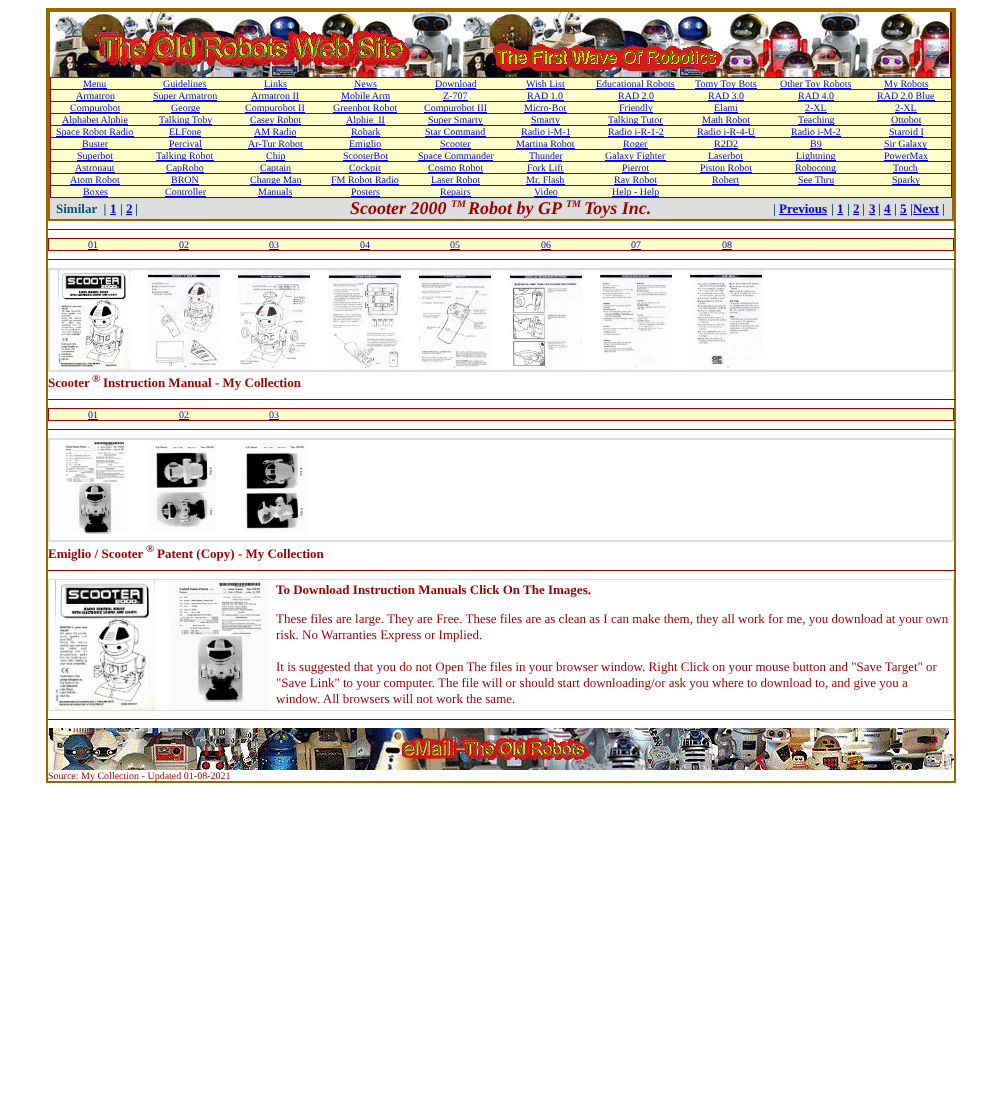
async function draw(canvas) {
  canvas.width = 1001;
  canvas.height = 1110;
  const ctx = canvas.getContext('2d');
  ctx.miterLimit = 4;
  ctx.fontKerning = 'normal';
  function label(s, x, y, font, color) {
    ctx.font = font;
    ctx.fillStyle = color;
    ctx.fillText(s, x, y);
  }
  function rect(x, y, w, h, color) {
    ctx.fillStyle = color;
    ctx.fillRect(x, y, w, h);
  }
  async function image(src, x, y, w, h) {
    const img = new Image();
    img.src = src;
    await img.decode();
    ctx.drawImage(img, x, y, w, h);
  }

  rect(0, 0, 1001, 1110, '#fff');
  ctx.strokeStyle = '#960';
  ctx.strokeRect(46.5, 8.5, 909, 774);
  ctx.strokeRect(47.5, 9.5, 907, 772);
  rect(50, 12, 902, 186, '#900');
  ctx.strokeRect(48.5, 10.5, 905, 210);
  ctx.strokeRect(49.5, 11.5, 903, 208);
  await image('assets/img1.png', 50, 12, 900, 65);
  rect(51, 78, 900, 11, '#ffc');
  label('Menu', 83, 87, '10px Liberation Serif', '#00e');
  rect(83, 88, 24, 1, '#00e');
  label('Guidelines', 163, 87, '10px Liberation Serif', '#00e');
  rect(163, 88, 44, 1, '#00e');
  label('Links', 264, 87, '10px Liberation Serif', '#00e');
  rect(264, 88, 23, 1, '#00e');
  label('News', 354, 87, '10px Liberation Serif', '#00e');
  rect(354, 88, 23, 1, '#00e');
  label('Download', 435, 87, '10px Liberation Serif', '#00e');
  rect(435, 88, 41, 1, '#00e');
  label('Wish List', 526, 87, '10px Liberation Serif', '#00e');
  rect(526, 88, 39, 1, '#00e');
  label('Educational Robots', 596, 87, '10px Liberation Serif', '#00e');
  rect(596, 88, 79, 1, '#00e');
  rect(695, 88, 62, 1, '#00e');
  label('Tomy Toy Bots', 695, 87, '10px Liberation Serif', '#00e');
  rect(780, 88, 71, 1, '#00e');
  label('Other Toy Robots', 780, 87, '10px Liberation Serif', '#00e');
  rect(884, 88, 44, 1, '#00e');
  label('My Robots', 884, 87, '10px Liberation Serif', '#00e');
  rect(51, 90, 900, 11, '#ffc');
  label('Armatron', 76, 99, '10px Liberation Serif', '#00e');
  rect(76, 100, 38, 1, '#00e');
  rect(153, 100, 64, 1, '#00e');
  label('Super Armatron', 153, 99, '10px Liberation Serif', '#00e');
  label('Armatron II', 251, 99, '10px Liberation Serif', '#00e');
  rect(251, 100, 48, 1, '#00e');
  label('Mobile Arm', 341, 99, '10px Liberation Serif', '#00e');
  rect(341, 100, 49, 1, '#00e');
  label('Z-707', 443, 99, '10px Liberation Serif', '#00e');
  rect(443, 100, 25, 1, '#00e');
  label('RAD 1.0', 527, 99, '10px Liberation Serif', '#00e');
  rect(527, 100, 37, 1, '#00e');
  label('RAD 2.0', 618, 99, '10px Liberation Serif', '#00e');
  rect(618, 100, 36, 1, '#00e');
  label('RAD 3.0', 708, 99, '10px Liberation Serif', '#00e');
  rect(708, 100, 36, 1, '#00e');
  label('RAD 4.0', 798, 99, '10px Liberation Serif', '#00e');
  rect(798, 100, 36, 1, '#00e');
  label('RAD 2.0 Blue', 877, 99, '10px Liberation Serif', '#00e');
  rect(877, 100, 58, 1, '#00e');
  rect(51, 102, 900, 11, '#ffc');
  rect(70, 112, 50, 1, '#00e');
  label('Compurobot', 70, 111, '10px Liberation Serif', '#00e');
  rect(171, 112, 29, 1, '#00e');
  label('George', 171, 111, '10px Liberation Serif', '#00e');
  rect(245, 112, 60, 1, '#00e');
  label('Compurobot II', 245, 111, '10px Liberation Serif', '#00e');
  label('Greenbot Robot', 333, 111, '10px Liberation Serif', '#00e');
  rect(333, 112, 64, 1, '#00e');
  rect(424, 112, 63, 1, '#00e');
  label('Compurobot III', 424, 111, '10px Liberation Serif', '#00e');
  label('Micro-Bot', 524, 111, '10px Liberation Serif', '#00e');
  rect(524, 112, 43, 1, '#00e');
  rect(619, 112, 34, 1, '#00e');
  label('Friendly', 619, 111, '10px Liberation Serif', '#00e');
  label('Elami', 714, 111, '10px Liberation Serif', '#00e');
  rect(714, 112, 24, 1, '#00e');
  label('2-XL', 805, 111, '10px Liberation Serif', '#00e');
  rect(805, 112, 22, 1, '#00e');
  label('2-XL', 895, 111, '10px Liberation Serif', '#00e');
  rect(895, 112, 22, 1, '#00e');
  rect(51, 114, 900, 11, '#ffc');
  rect(62, 124, 66, 1, '#00e');
  label('Alphabet Alphie', 62, 123, '10px Liberation Serif', '#00e');
  rect(159, 124, 53, 1, '#00e');
  label('Talking Toby', 159, 123, '10px Liberation Serif', '#00e');
  rect(250, 124, 51, 1, '#00e');
  label('Casey Robot', 250, 123, '10px Liberation Serif', '#00e');
  rect(346, 124, 39, 1, '#00e');
  label('Alphie_II', 346, 123, '10px Liberation Serif', '#00e');
  rect(428, 124, 55, 1, '#00e');
  label('Super Smarty', 428, 123, '10px Liberation Serif', '#00e');
  rect(531, 124, 29, 1, '#00e');
  label('Smarty', 531, 123, '10px Liberation Serif', '#00e');
  rect(608, 124, 55, 1, '#00e');
  label('Talking Tutor', 608, 123, '10px Liberation Serif', '#00e');
  label('Math Robot', 702, 123, '10px Liberation Serif', '#00e');
  rect(702, 124, 48, 1, '#00e');
  rect(798, 124, 36, 1, '#00e');
  label('Teaching', 798, 123, '10px Liberation Serif', '#00e');
  label('Ottobot', 891, 123, '10px Liberation Serif', '#00e');
  rect(891, 124, 30, 1, '#00e');
  rect(51, 126, 900, 11, '#ffc');
  rect(56, 136, 78, 1, '#00e');
  label('Space Robot Radio', 56, 135, '10px Liberation Serif', '#00e');
  label('ELFone', 169, 135, '10px Liberation Serif', '#00e');
  rect(169, 136, 32, 1, '#00e');
  label('AM Radio', 254, 135, '10px Liberation Serif', '#00e');
  rect(254, 136, 42, 1, '#00e');
  label('Robark', 351, 135, '10px Liberation Serif', '#00e');
  rect(351, 136, 29, 1, '#00e');
  label('Star Command', 425, 135, '10px Liberation Serif', '#00e');
  rect(425, 136, 61, 1, '#00e');
  label('Radio i-M-1', 521, 135, '10px Liberation Serif', '#00e');
  rect(521, 136, 49, 1, '#00e');
  label('Radio i-R-1-2', 608, 135, '10px Liberation Serif', '#00e');
  rect(608, 136, 56, 1, '#00e');
  label('Radio i-R-4-U', 697, 135, '10px Liberation Serif', '#00e');
  rect(697, 136, 58, 1, '#00e');
  label('Radio i-M-2', 791, 135, '10px Liberation Serif', '#00e');
  rect(791, 136, 50, 1, '#00e');
  label('Staroid I', 889, 135, '10px Liberation Serif', '#00e');
  rect(889, 136, 34, 1, '#00e');
  rect(51, 138, 900, 11, '#ffc');
  label('Buster', 82, 147, '10px Liberation Serif', '#00e');
  rect(82, 148, 26, 1, '#00e');
  label('Percival', 169, 147, '10px Liberation Serif', '#00e');
  rect(169, 148, 33, 1, '#00e');
  label('Ar-Tur Robot', 248, 147, '10px Liberation Serif', '#00e');
  rect(248, 148, 55, 1, '#00e');
  rect(349, 148, 32, 1, '#00e');
  label('Emiglio', 349, 147, '10px Liberation Serif', '#00e');
  label('Scooter', 440, 147, '10px Liberation Serif', '#00e');
  rect(440, 148, 31, 1, '#00e');
  label('Martina Robot', 516, 147, '10px Liberation Serif', '#00e');
  rect(516, 148, 59, 1, '#00e');
  rect(623, 148, 25, 1, '#00e');
  label('Roger', 623, 147, '10px Liberation Serif', '#00e');
  label('R2D2', 714, 147, '10px Liberation Serif', '#00e');
  rect(714, 148, 24, 1, '#00e');
  label('B9', 810, 147, '10px Liberation Serif', '#00e');
  rect(810, 148, 12, 1, '#00e');
  rect(884, 148, 43, 1, '#00e');
  label('Sir Galaxy', 884, 147, '10px Liberation Serif', '#00e');
  rect(51, 150, 900, 11, '#ffc');
  rect(77, 160, 36, 1, '#00e');
  label('Superbot', 77, 159, '10px Liberation Serif', '#00e');
  rect(156, 160, 58, 1, '#00e');
  label('Talking Robot', 156, 159, '10px Liberation Serif', '#00e');
  rect(266, 160, 19, 1, '#00e');
  label('Chip', 266, 159, '10px Liberation Serif', '#00e');
  label('ScooterBot', 343, 159, '10px Liberation Serif', '#00e');
  rect(343, 160, 45, 1, '#00e');
  rect(418, 160, 75, 1, '#00e');
  label('Space Commander', 418, 159, '10px Liberation Serif', '#00e');
  label('Thunder', 529, 159, '10px Liberation Serif', '#00e');
  rect(529, 160, 33, 1, '#00e');
  rect(605, 160, 61, 1, '#00e');
  label('Galaxy Fighter', 605, 159, '10px Liberation Serif', '#00e');
  label('Laserbot', 708, 159, '10px Liberation Serif', '#00e');
  rect(708, 160, 35, 1, '#00e');
  rect(796, 160, 40, 1, '#00e');
  label('Lightning', 796, 159, '10px Liberation Serif', '#00e');
  label('PowerMax', 884, 159, '10px Liberation Serif', '#00e');
  rect(884, 160, 44, 1, '#00e');
  rect(51, 162, 900, 11, '#ffc');
  label('Astronaut', 75, 171, '10px Liberation Serif', '#00e');
  rect(75, 172, 40, 1, '#00e');
  rect(166, 172, 38, 1, '#00e');
  label('CapRobo', 166, 171, '10px Liberation Serif', '#00e');
  rect(260, 172, 31, 1, '#00e');
  label('Captain', 260, 171, '10px Liberation Serif', '#00e');
  rect(349, 172, 32, 1, '#00e');
  label('Cockpit', 349, 171, '10px Liberation Serif', '#00e');
  label('Cosmo Robot', 428, 171, '10px Liberation Serif', '#00e');
  rect(428, 172, 55, 1, '#00e');
  label('Fork Lift', 527, 171, '10px Liberation Serif', '#00e');
  rect(527, 172, 37, 1, '#00e');
  label('Pierrot', 622, 171, '10px Liberation Serif', '#00e');
  rect(622, 172, 27, 1, '#00e');
  label('Piston Robot', 700, 171, '10px Liberation Serif', '#00e');
  rect(700, 172, 52, 1, '#00e');
  rect(795, 172, 41, 1, '#00e');
  label('Robocong', 795, 171, '10px Liberation Serif', '#00e');
  label('Touch', 893, 171, '10px Liberation Serif', '#00e');
  rect(893, 172, 25, 1, '#00e');
  rect(51, 174, 900, 11, '#ffc');
  label('Atom Robot', 70, 183, '10px Liberation Serif', '#00e');
  rect(70, 184, 50, 1, '#00e');
  label('BRON', 171, 183, '10px Liberation Serif', '#00e');
  rect(171, 184, 28, 1, '#00e');
  rect(250, 184, 51, 1, '#00e');
  label('Change Man', 250, 183, '10px Liberation Serif', '#00e');
  label('FM Robot Radio', 331, 183, '10px Liberation Serif', '#00e');
  rect(331, 184, 68, 1, '#00e');
  label('Laser Robot', 431, 183, '10px Liberation Serif', '#00e');
  rect(431, 184, 49, 1, '#00e');
  label('Mr. Flash', 526, 183, '10px Liberation Serif', '#00e');
  rect(526, 184, 39, 1, '#00e');
  rect(614, 184, 43, 1, '#00e');
  label('Ray Robot', 614, 183, '10px Liberation Serif', '#00e');
  label('Robert', 712, 183, '10px Liberation Serif', '#00e');
  rect(712, 184, 27, 1, '#00e');
  label('See Thru', 798, 183, '10px Liberation Serif', '#00e');
  rect(798, 184, 36, 1, '#00e');
  rect(892, 184, 28, 1, '#00e');
  label('Sparky', 892, 183, '10px Liberation Serif', '#00e');
  rect(51, 186, 900, 11, '#ffc');
  label('Boxes', 83, 195, '10px Liberation Serif', '#00e');
  rect(83, 196, 25, 1, '#00e');
  label('Controller', 165, 195, '10px Liberation Serif', '#00e');
  rect(165, 196, 41, 1, '#00e');
  label('Manuals', 258, 195, '10px Liberation Serif', '#00e');
  rect(258, 196, 34, 1, '#00e');
  label('Posters', 351, 195, '10px Liberation Serif', '#00e');
  rect(351, 196, 29, 1, '#00e');
  rect(440, 196, 31, 1, '#00e');
  label('Repairs', 440, 195, '10px Liberation Serif', '#00e');
  label('Video', 534, 195, '10px Liberation Serif', '#00e');
  rect(534, 196, 23, 1, '#00e');
  rect(612, 196, 47, 1, '#00e');
  label('Help - Help', 612, 195, '10px Liberation Serif', '#00e');
  rect(50, 198, 902, 21, '#ddd');
  label('Similar  |', 56, 213, 'bold 13px Liberation Serif', '#005279');
  label('1', 110, 213, 'bold 13px Liberation Serif', '#00e');
  rect(110, 214, 6, 1, '#00e');
  label('|', 120, 213, 'bold 13px Liberation Serif', '#005279');
  label('2', 126, 213, 'bold 13px Liberation Serif', '#00e');
  rect(126, 214, 6, 1, '#00e');
  label('|', 135, 213, 'bold 13px Liberation Serif', '#005279');
  label('Scooter 2000', 350, 214, 'italic bold 18px Liberation Serif', '#900');
  label('TM', 451, 207, 'italic bold 10px Liberation Serif', '#900');
  label('Robot by GP', 468, 214, 'italic bold 18px Liberation Serif', '#900');
  label('TM', 566, 207, 'italic bold 10px Liberation Serif', '#900');
  label('Toys Inc.', 584, 214, 'italic bold 18px Liberation Serif', '#900');
  label('|', 773, 213, 'bold 13px Liberation Serif', '#005279');
  label('Previous', 779, 213, 'bold 13px Liberation Serif', '#00e');
  rect(779, 214, 48, 1, '#00e');
  label('|', 831, 213, 'bold 13px Liberation Serif', '#005279');
  label('1', 837, 213, 'bold 13px Liberation Serif', '#00e');
  rect(837, 214, 6, 1, '#00e');
  label('|', 847, 213, 'bold 13px Liberation Serif', '#005279');
  label('2', 853, 213, 'bold 13px Liberation Serif', '#00e');
  rect(853, 214, 6, 1, '#00e');
  label('|', 862, 213, 'bold 13px Liberation Serif', '#005279');
  label('3', 869, 213, 'bold 13px Liberation Serif', '#00e');
  rect(869, 214, 6, 1, '#00e');
  label('|', 878, 213, 'bold 13px Liberation Serif', '#005279');
  label('4', 884, 213, 'bold 13px Liberation Serif', '#00e');
  rect(884, 214, 7, 1, '#00e');
  label('|', 894, 213, 'bold 13px Liberation Serif', '#005279');
  label('5', 900, 213, 'bold 13px Liberation Serif', '#00e');
  rect(900, 214, 7, 1, '#00e');
  label('|', 910, 213, 'bold 13px Liberation Serif', '#005279');
  rect(913, 214, 26, 1, '#00e');
  label('Next', 913, 213, 'bold 13px Liberation Serif', '#00e');
  label('|', 942, 213, 'bold 13px Liberation Serif', '#005279');
  rect(48, 229, 908, 1, '#900');
  rect(48, 238, 906, 13, '#900');
  rect(49, 239, 904, 11, '#ffc');
  label('01', 88, 248, '10px Liberation Serif', '#00e');
  rect(88, 249, 10, 1, '#00e');
  label('02', 179, 248, '10px Liberation Serif', '#00e');
  rect(179, 249, 10, 1, '#00e');
  label('03', 269, 248, '10px Liberation Serif', '#00e');
  rect(269, 249, 10, 1, '#00e');
  label('04', 360, 248, '10px Liberation Serif', '#00e');
  rect(360, 249, 10, 1, '#00e');
  label('05', 450, 248, '10px Liberation Serif', '#00e');
  rect(450, 249, 10, 1, '#00e');
  label('06', 541, 248, '10px Liberation Serif', '#00e');
  rect(541, 249, 10, 1, '#00e');
  label('07', 631, 248, '10px Liberation Serif', '#00e');
  rect(631, 249, 10, 1, '#00e');
  label('08', 722, 248, '10px Liberation Serif', '#00e');
  rect(722, 249, 10, 1, '#00e');
  rect(48, 259, 908, 1, '#900');
  rect(48, 268, 906, 104, '#ddd');
  rect(50, 270, 902, 100, '#fff');
  await image('assets/img2.png', 58, 270, 72, 100);
  await image('assets/img3.png', 148, 270, 72, 100);
  await image('assets/img4.png', 238, 270, 72, 100);
  await image('assets/img5.png', 329, 270, 72, 100);
  await image('assets/img6.png', 419, 270, 72, 100);
  await image('assets/img7.png', 510, 270, 72, 100);
  await image('assets/img8.png', 600, 270, 72, 100);
  await image('assets/img9.png', 690, 270, 72, 100);
  label('Scooter', 48, 387, 'bold 13px Liberation Serif', '#900');
  label('®', 92, 382, 'bold 11px Liberation Serif', '#900');
  label('Instruction Manual - My Collection', 103, 387, 'bold 13px Liberation Serif', '#900');
  rect(48, 399, 908, 1, '#900');
  rect(48, 408, 906, 13, '#900');
  rect(49, 409, 904, 11, '#ffc');
  label('01', 88, 418, '10px Liberation Serif', '#00e');
  rect(88, 419, 10, 1, '#00e');
  label('02', 179, 418, '10px Liberation Serif', '#00e');
  rect(179, 419, 10, 1, '#00e');
  label('03', 269, 418, '10px Liberation Serif', '#00e');
  rect(269, 419, 10, 1, '#00e');
  rect(48, 429, 908, 1, '#900');
  rect(48, 438, 906, 104, '#ddd');
  rect(50, 440, 902, 100, '#fff');
  await image('assets/img10.png', 65, 442, 64, 92);
  await image('assets/img11.png', 148, 444, 69, 87);
  await image('assets/img12.png', 243, 442, 64, 91);
  label('Emiglio / Scooter', 48, 558, 'bold 13px Liberation Serif', '#900');
  label('®', 146, 552, 'bold 11px Liberation Serif', '#900');
  label('Patent (Copy) - My Collection', 157, 558, 'bold 13px Liberation Serif', '#900');
  rect(48, 570, 908, 1, '#900');
  rect(48, 579, 906, 132, '#ddd');
  rect(49, 580, 904, 130, '#fff');
  await image('assets/img13.png', 55, 580, 100, 130);
  await image('assets/img14.png', 169, 580, 100, 130);
  label('To Download Instruction Manuals Click On The Images.', 276, 594, 'bold 13px Liberation Serif', '#900');
  label('These files are large. They are Free. These files are as clean as I can make them, they all work for me, you download at your own', 276, 623, '13px Liberation Serif', '#900');
  label('risk. No Warranties Express or Implied.', 276, 639, '13px Liberation Serif', '#900');
  label('It is suggested that you do not Open The files in your browser window. Right Click on your mouse button and "Save Target" or', 276, 671, '13px Liberation Serif', '#900');
  label('"Save Link" to your computer. The file will or should start downloading/or ask you where to download to, and give you a', 276, 687, '13px Liberation Serif', '#900');
  label('window. All browsers will not work the same.', 276, 703, '13px Liberation Serif', '#900');
  rect(48, 719, 908, 1, '#900');
  await image('assets/img15.png', 48, 728, 906, 42);
  label('Source: My Collection - Updated 01-08-2021', 48, 779, '10px Liberation Serif', '#900');
}

draw(document.querySelector('canvas'));
